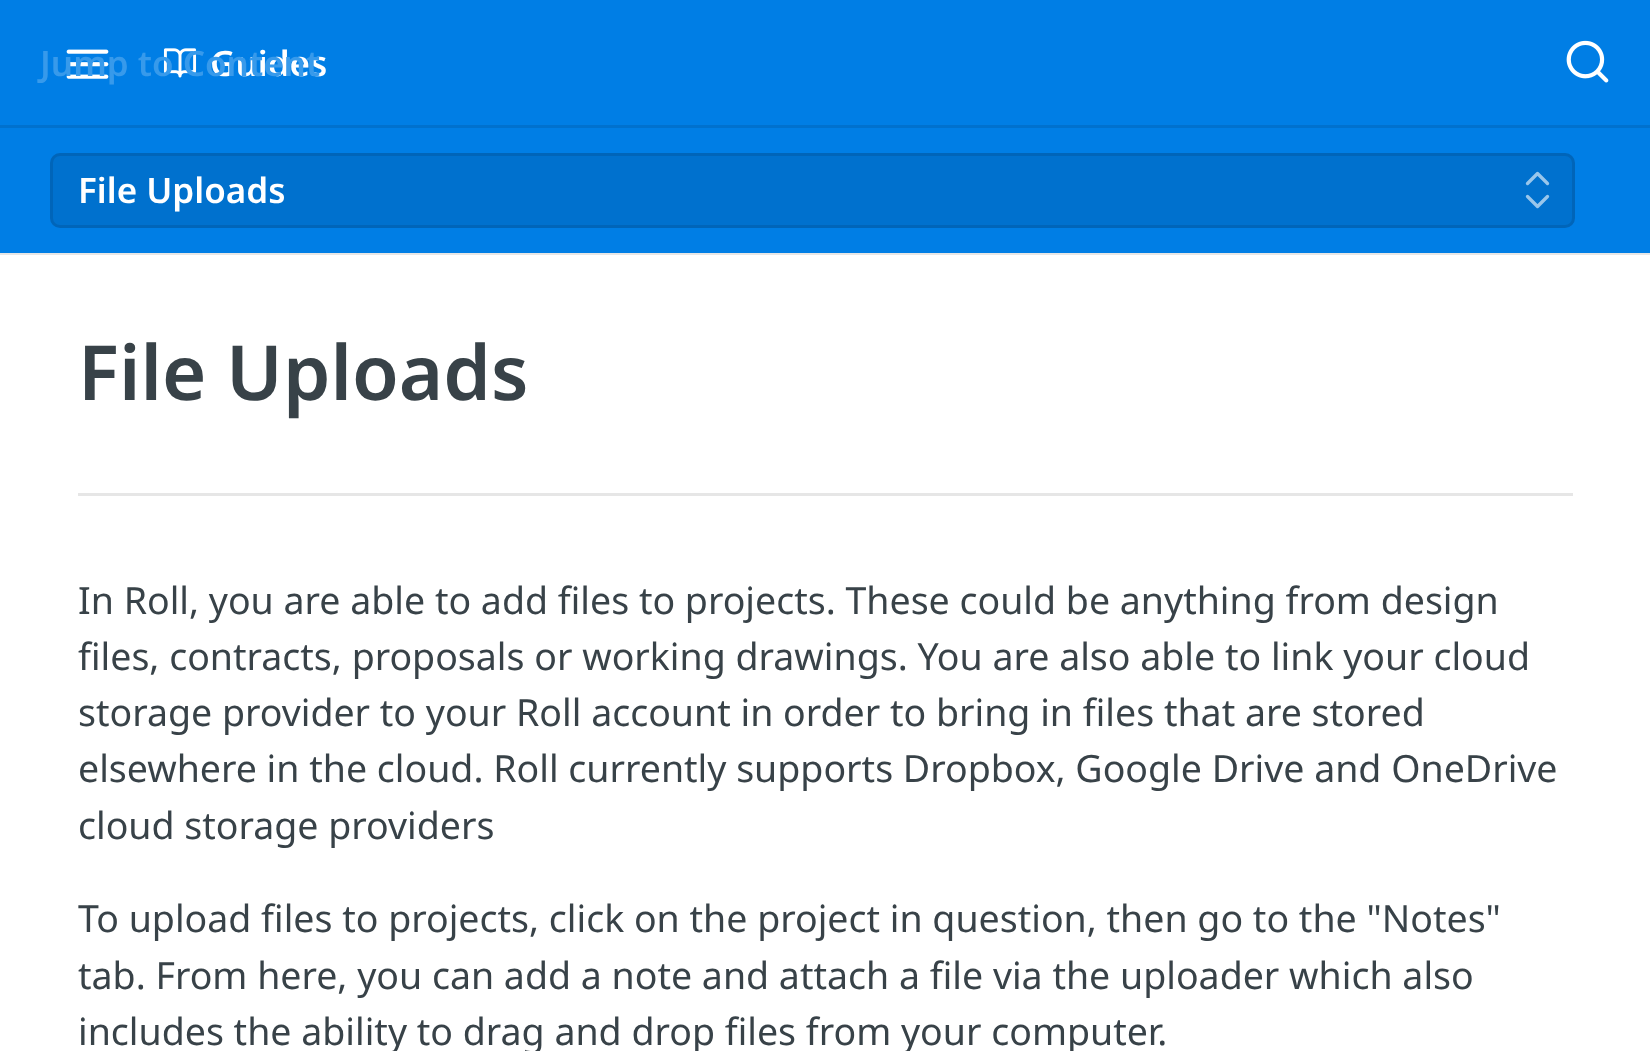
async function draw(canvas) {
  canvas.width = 1650;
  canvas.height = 1051;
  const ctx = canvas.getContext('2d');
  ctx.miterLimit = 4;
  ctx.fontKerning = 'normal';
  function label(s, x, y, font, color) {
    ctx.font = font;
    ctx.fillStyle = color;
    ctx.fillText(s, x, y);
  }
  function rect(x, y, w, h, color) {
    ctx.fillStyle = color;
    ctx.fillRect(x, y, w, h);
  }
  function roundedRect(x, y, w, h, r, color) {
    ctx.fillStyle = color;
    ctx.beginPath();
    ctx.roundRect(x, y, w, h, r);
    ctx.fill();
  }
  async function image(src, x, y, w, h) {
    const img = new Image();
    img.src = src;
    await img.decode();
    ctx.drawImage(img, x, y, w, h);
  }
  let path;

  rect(0, 0, 1650, 1051, '#fff');
  rect(0, 253, 1650, 2, '#e6e6e6');
  rect(0, 0, 1650, 253, '#007ee5');
  rect(0, 125, 1650, 3, '#0071ce');
  await image('assets/img1.png', 66, 49, 43, 30);
  await image('assets/img2.png', 163, 48, 34, 30);
  label('Guides', 210, 76, '600 35px Noto Sans', '#fff');
  await image('assets/img3.png', 1566, 40, 43, 43);
  label('Jump to Content', 40, 76, '600 35px Noto Sans', '#379aeb');
  roundedRect(50, 153, 1525, 75, 10, '#0071ce');
  ctx.beginPath();
  ctx.roundRect(51.5, 154.5, 1522, 72, 8.5);
  ctx.strokeStyle = '#0000001a';
  ctx.lineWidth = 3;
  ctx.stroke();
  label('File Uploads', 78, 203, '600 35px Noto Sans', '#fff');
  path = new Path2D('M1527.5 196.5L1537.5 206.5L1547.5 196.5M1547.5 183.5L1537.5 173.5L1527.5 183.5');
  ctx.strokeStyle = '#99c6eb';
  ctx.lineWidth = 3.3;
  ctx.lineCap = 'round';
  ctx.lineJoin = 'round';
  ctx.stroke(path);
  rect(78, 493, 1495, 3, '#e6e6e6');
  label('File Uploads', 78, 400, '600 76px Noto Sans', '#384248');
  label('In Roll, you are able to add files to projects. These could be anything from design', 78, 614, '37.5px Noto Sans', '#384248');
  label('files, contracts, proposals or working drawings. You are also able to link your cloud', 78, 670, '37.5px Noto Sans', '#384248');
  label('storage provider to your Roll account in order to bring in files that are stored', 78, 726, '37.5px Noto Sans', '#384248');
  label('elsewhere in the cloud. Roll currently supports Dropbox, Google Drive and OneDrive', 78, 782, '37.5px Noto Sans', '#384248');
  label('cloud storage providers', 78, 839, '37.5px Noto Sans', '#384248');
  label('To upload files to projects, click on the project in question, then go to the "Notes"', 78, 932, '37.5px Noto Sans', '#384248');
  label('tab. From here, you can add a note and attach a file via the uploader which also', 78, 989, '37.5px Noto Sans', '#384248');
  label('includes the ability to drag and drop files from your computer.', 78, 1045, '37.5px Noto Sans', '#384248');
}

draw(document.querySelector('canvas'));
